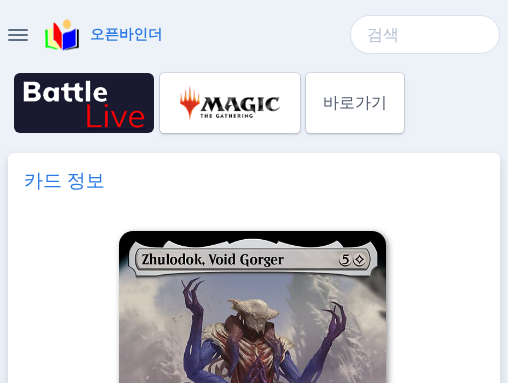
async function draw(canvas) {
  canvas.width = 508;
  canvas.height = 383;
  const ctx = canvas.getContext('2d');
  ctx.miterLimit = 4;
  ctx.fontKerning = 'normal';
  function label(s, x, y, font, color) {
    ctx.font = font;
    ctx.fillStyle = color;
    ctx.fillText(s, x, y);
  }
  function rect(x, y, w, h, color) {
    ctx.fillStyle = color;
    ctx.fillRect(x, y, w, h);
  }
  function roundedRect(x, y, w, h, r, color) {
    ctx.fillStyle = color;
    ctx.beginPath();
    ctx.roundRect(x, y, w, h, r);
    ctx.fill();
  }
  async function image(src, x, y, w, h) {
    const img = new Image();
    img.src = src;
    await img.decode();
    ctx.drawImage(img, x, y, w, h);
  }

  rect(0, 0, 508, 383, '#edf2f9');
  roundedRect(8, 29, 20, 2, 1, '#5e6e82');
  roundedRect(8, 34, 20, 2, 1, '#5e6e82');
  roundedRect(8, 39, 20, 2, 1, '#5e6e82');
  await image('assets/img1.png', 45, 19, 34, 32);
  label('오픈바인더', 90, 39, 'bold 14.5px WenQuanYi Zen Hei', '#2c7be5');
  ctx.fillStyle = '#fff';
  ctx.beginPath();
  ctx.roundRect(350.5, 15.5, 149, 38, 19);
  ctx.fill();
  ctx.strokeStyle = '#d8e2ef';
  ctx.stroke();
  label('검색', 367, 40, '500 16px WenQuanYi Zen Hei', '#b6c1d2');
  await image('assets/img2.png', 14, 73, 140, 60);
  ctx.fillStyle = '#00000014';
  ctx.filter = 'blur(1px)';
  ctx.beginPath();
  ctx.roundRect(160, 74, 140, 60, 4);
  ctx.fill();
  ctx.filter = 'none';
  ctx.fillStyle = '#00000012';
  ctx.filter = 'blur(1px)';
  ctx.beginPath();
  ctx.roundRect(160, 74, 140, 60, 4);
  ctx.fill();
  ctx.filter = 'none';
  ctx.fillStyle = '#2b2d5014';
  ctx.filter = 'blur(2.5px)';
  ctx.beginPath();
  ctx.roundRect(160, 75, 140, 60, 4);
  ctx.fill();
  ctx.filter = 'none';
  ctx.beginPath();
  ctx.roundRect(159.5, 72.5, 141, 61, 4.5);
  ctx.strokeStyle = '#2b2d501a';
  ctx.stroke();
  ctx.fillStyle = '#fff';
  ctx.beginPath();
  ctx.roundRect(160.5, 73.5, 139, 59, 3.5);
  ctx.fill();
  ctx.strokeStyle = '#fff';
  ctx.stroke();
  await image('assets/img3.png', 180, 86, 100, 34);
  ctx.fillStyle = '#00000014';
  ctx.filter = 'blur(1px)';
  ctx.beginPath();
  ctx.roundRect(306, 74, 98, 60, 4);
  ctx.fill();
  ctx.filter = 'none';
  ctx.fillStyle = '#00000012';
  ctx.filter = 'blur(1px)';
  ctx.beginPath();
  ctx.roundRect(306, 74, 98, 60, 4);
  ctx.fill();
  ctx.filter = 'none';
  ctx.fillStyle = '#2b2d5014';
  ctx.filter = 'blur(2.5px)';
  ctx.beginPath();
  ctx.roundRect(306, 75, 98, 60, 4);
  ctx.fill();
  ctx.filter = 'none';
  ctx.beginPath();
  ctx.roundRect(305.5, 72.5, 99, 61, 4.5);
  ctx.strokeStyle = '#2b2d501a';
  ctx.stroke();
  ctx.fillStyle = '#fff';
  ctx.beginPath();
  ctx.roundRect(306.5, 73.5, 97, 59, 3.5);
  ctx.fill();
  ctx.strokeStyle = '#fff';
  ctx.stroke();
  label('바로가기', 323, 108, '500 16px WenQuanYi Zen Hei', '#4d5969');
  ctx.fillStyle = '#00000012';
  ctx.filter = 'blur(3px)';
  ctx.beginPath();
  ctx.roundRect(8, 156, 492, 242, 6);
  ctx.fill();
  ctx.filter = 'none';
  ctx.fillStyle = '#4145581a';
  ctx.filter = 'blur(7px)';
  ctx.beginPath();
  ctx.roundRect(8, 160, 492, 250, 6);
  ctx.fill();
  ctx.filter = 'none';
  roundedRect(8, 153, 492, 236, 6, '#fff');
  ctx.wordSpacing = '-1px';
  label('카드 정보', 24, 187, '500 19px WenQuanYi Zen Hei', '#2c7be5');
  ctx.fillStyle = '#00000073';
  ctx.filter = 'blur(3px)';
  ctx.beginPath();
  ctx.roundRect(121, 233, 267, 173, 14);
  ctx.fill();
  ctx.filter = 'none';
  await image('assets/img4.png', 119, 231, 267, 152);
}

draw(document.querySelector('canvas'));
